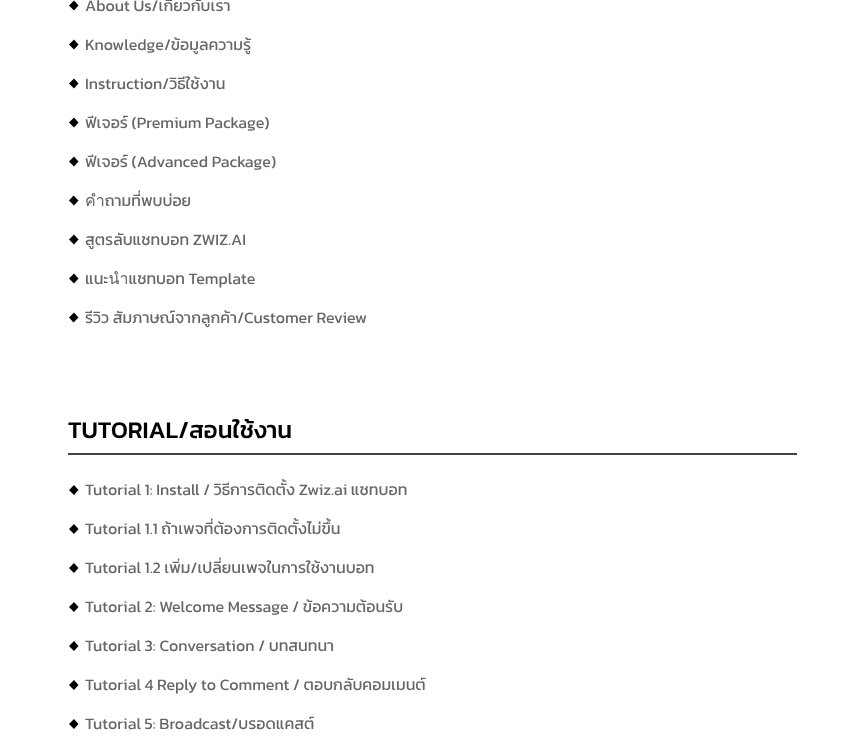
async function draw(canvas) {
  canvas.width = 865;
  canvas.height = 742;
  const ctx = canvas.getContext('2d');
  ctx.miterLimit = 4;
  ctx.fontKerning = 'normal';
  function label(s, x, y, font, color) {
    ctx.font = font;
    ctx.fillStyle = color;
    ctx.fillText(s, x, y);
  }
  function rect(x, y, w, h, color) {
    ctx.fillStyle = color;
    ctx.fillRect(x, y, w, h);
  }
  let path;

  rect(0, 0, 865, 742, '#fff');
  ctx.fillStyle = '#000';
  path = new Path2D('M74 .5L78.5 5.5L74 10.5L69 5.5ZM74 39.5L78.5 44.5L74 49.5L69 44.5Z');
  ctx.fill(path);
  label('About Us/เกี่ยวกับเรา', 85, 11, '16px Kanit', '#666');
  label('Knowledge/ข้อมูลความรู้', 85, 50, '16px Kanit', '#666');
  label('ฟีเจอร์ (Premium Package)', 85, 128, '16px Kanit', '#666');
  ctx.fillStyle = '#000';
  path = new Path2D('M74 78.5L78.5 83.5L74 88.5L69 83.5ZM74 117.5L78.5 122.5L74 127.5L69 122.5Z');
  ctx.fill(path);
  label('Instruction/วิธีใช้งาน', 85, 89, '16px Kanit', '#666');
  label('ฟีเจอร์ (Advanced Package)', 85, 167, '16px Kanit', '#666');
  ctx.fillStyle = '#000';
  path = new Path2D('M74 156.5L78.5 161.5L74 166.5L69 161.5ZM73.5 195.5L78.5 200.5L74 205.5L69 200.5Z');
  ctx.fill(path);
  label('คำถามที่พบบ่อย', 85, 206, '16px Kanit', '#666');
  ctx.fillStyle = '#000';
  path = new Path2D('M74 234.5L78.5 239.5L74 244.5L69 239.5ZM74 273.5L78.5 278.5L74 283.5L69 278.5Z');
  ctx.fill(path);
  label('สูตรลับแชทบอท ZWIZ.AI', 85, 245, '16px Kanit', '#666');
  label('แนะนำแชทบอท Template', 85, 284, '16px Kanit', '#666');
  label('รีวิว สัมภาษณ์จากลูกค้า/Customer Review', 85, 323, '16px Kanit', '#666');
  ctx.fillStyle = '#000';
  path = new Path2D('M74 312.5L78.5 317.5L73.5 322.5L69 317.5Z');
  ctx.fill(path);
  rect(68, 453, 729, 2, '#444');
  label('TUTORIAL/สอนใช้งาน', 68, 438, '500 24px Kanit', '#000');
  path = new Path2D('M74 485L78.5 490L74 495L69 490ZM74 524L78.5 529L74 534L69 529Z');
  ctx.fill(path);
  label('Tutorial 1: Install / วิธีการติดตั้ง Zwiz.ai แชทบอท', 85, 495, '16px Kanit', '#666');
  label('Tutorial 1.1 ถ้าเพจที่ต้องการติดตั้งไม่ขึ้น', 85, 534, '16px Kanit', '#666');
  ctx.fillStyle = '#000';
  path = new Path2D('M74 563L78.5 568L74 573L69 568ZM74 602L78.5 607L74 612L69 607Z');
  ctx.fill(path);
  label('Tutorial 1.2 เพิ่ม/เปลี่ยนเพจในการใช้งานบอท', 85, 573, '16px Kanit', '#666');
  label('Tutorial 2: Welcome Message / ข้อความต้อนรับ', 85, 612, '16px Kanit', '#666');
  ctx.fillStyle = '#000';
  path = new Path2D('M74 641L78.5 646L74 651L69 646ZM74 680L78.5 685L74 690L69 685Z');
  ctx.fill(path);
  label('Tutorial 3: Conversation / บทสนทนา', 85, 651, '16px Kanit', '#666');
  label('Tutorial 4 Reply to Comment / ตอบกลับคอมเมนต์', 85, 690, '16px Kanit', '#666');
  ctx.fillStyle = '#000';
  path = new Path2D('M74 719L78.5 724L74 729L69 724Z');
  ctx.fill(path);
  label('Tutorial 5: Broadcast/บรอดแคสต์', 85, 729, '16px Kanit', '#666');
}

draw(document.querySelector('canvas'));
